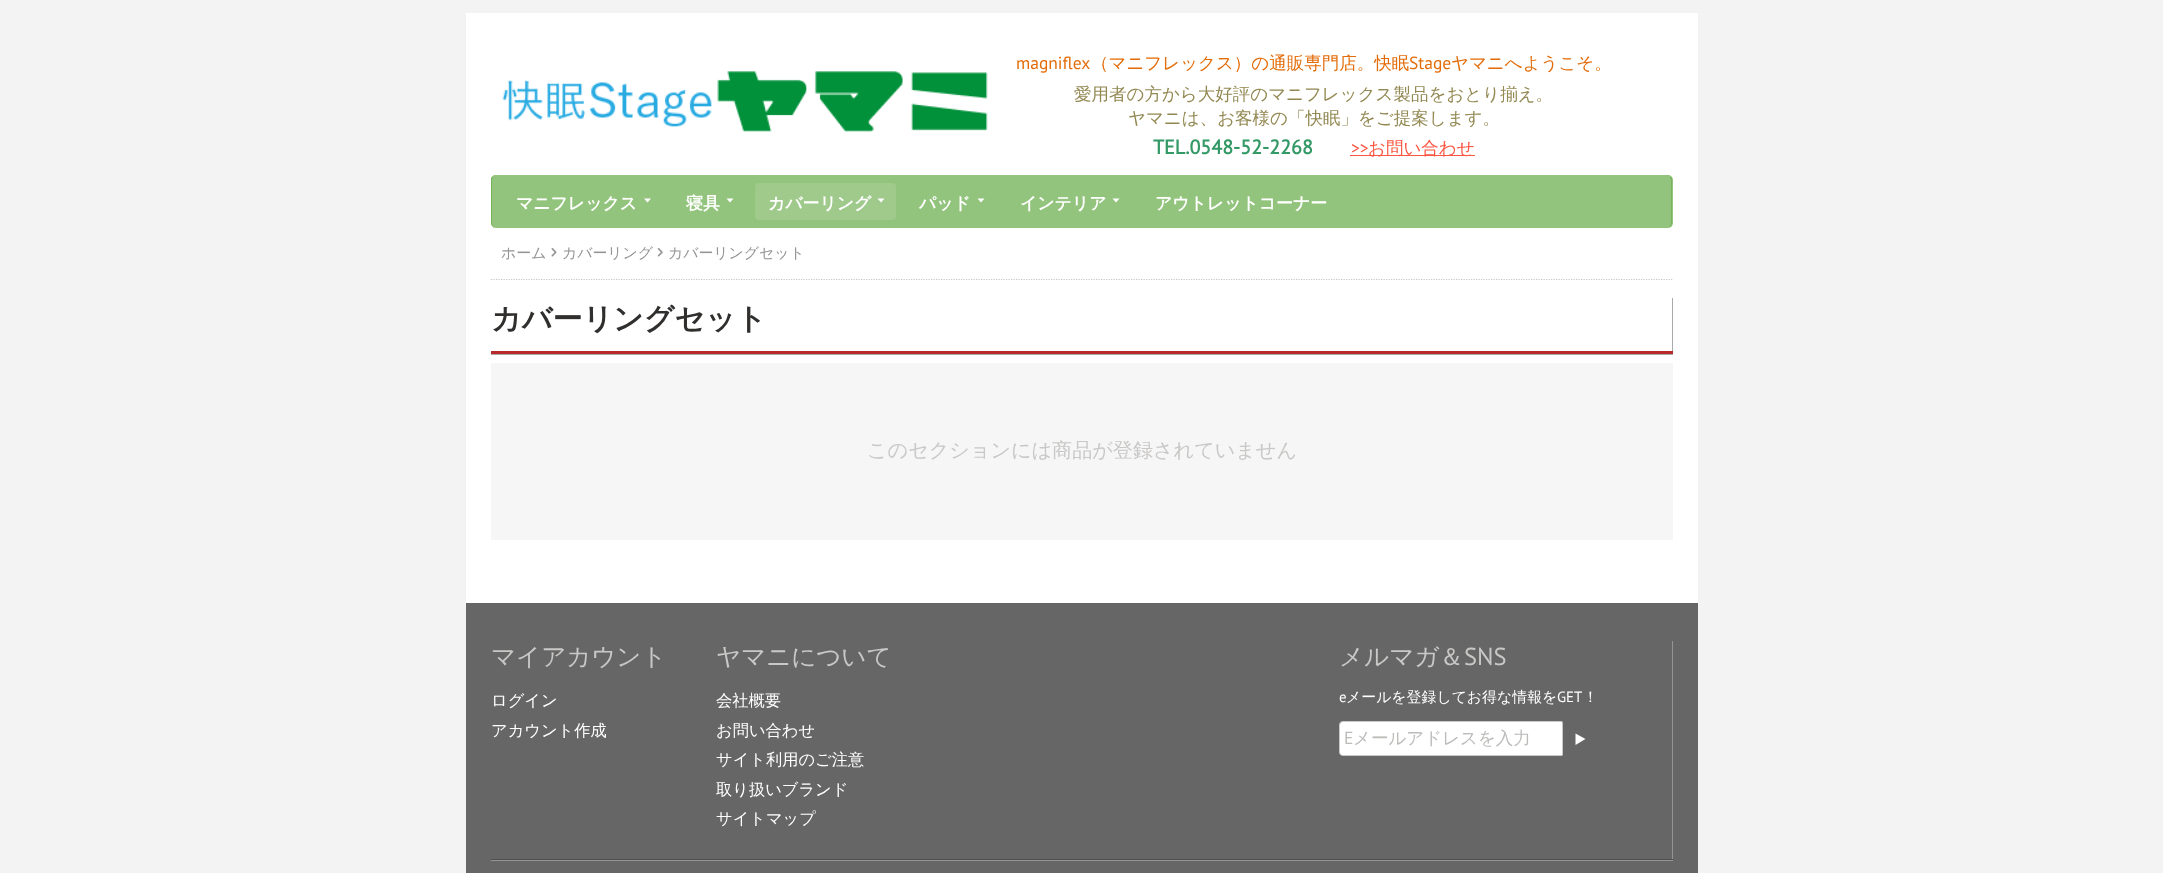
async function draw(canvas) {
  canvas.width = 2163;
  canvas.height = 873;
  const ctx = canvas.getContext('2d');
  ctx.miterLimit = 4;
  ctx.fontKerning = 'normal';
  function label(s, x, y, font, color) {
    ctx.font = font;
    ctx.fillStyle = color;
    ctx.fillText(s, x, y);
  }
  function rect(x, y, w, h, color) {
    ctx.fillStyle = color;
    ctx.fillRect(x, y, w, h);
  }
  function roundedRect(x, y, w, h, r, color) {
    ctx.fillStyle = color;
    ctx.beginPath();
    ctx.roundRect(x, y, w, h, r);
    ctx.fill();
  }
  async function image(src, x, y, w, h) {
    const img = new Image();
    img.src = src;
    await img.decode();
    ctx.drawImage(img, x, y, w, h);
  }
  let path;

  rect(0, 0, 2163, 873, '#f3f3f3');
  rect(466, 13, 1232, 590, '#fff');
  await image('assets/img1.png', 502, 71, 486, 61);
  label('magniflex', 1016, 69, '17.5px PT Sans', '#e36c09');
  label('（マニフレックス）の通販専門店。快眠', 1091, 69, '500 17.5px WenQuanYi Zen Hei', '#e36c09');
  label('Stage', 1409, 69, '17.5px PT Sans', '#e36c09');
  label('ヤマニへようこそ。', 1451, 69, '500 17.5px WenQuanYi Zen Hei', '#e36c09');
  label('愛用者の方から大好評のマニフレックス製品をおとり揃え。', 1074, 100, '500 17.5px WenQuanYi Zen Hei', '#938953');
  label('ヤマニは、お客様の「快眠」をご提案します。', 1128, 124, '500 17.5px WenQuanYi Zen Hei', '#938953');
  label('TEL.0548-52-2268', 1153, 154, 'bold 20px PT Sans', '#396');
  label('>>', 1351, 154, '17.5px PT Sans', '#fb5642');
  rect(1350, 155, 125, 1, '#fb5642');
  label('お問い合わせ', 1368, 154, '500 17.5px WenQuanYi Zen Hei', '#fb5642');
  roundedRect(491, 175, 1182, 53, 5, '#93c47d');
  path = new Path2D('M496 175C495 175 493 175 493 176V177L496 176H1668L1670 177H1671C1670 176 1669 175 1668 175Z');
  ctx.fill(path);
  ctx.fillStyle = '#76b45a';
  path = new Path2D('M1669 228C1670 227 1671 224 1671 222V180L1670 177H1671C1672 177 1672 179 1672 180V222C1672 224 1671 227 1669 228Z');
  ctx.fill(path);
  path = new Path2D('M491 178L493 176V177C493 178 492 179 492 180V222C492 224 493 227 495 228H494C493 227 492 225 491 224Z');
  ctx.fill(path);
  label('マニフレックス', 516, 209, 'bold 16.9px WenQuanYi Zen Hei', '#fff');
  path = new Path2D('M647.5 202.5L644 198.5H651Z');
  ctx.fill(path);
  label('寝具', 686, 209, 'bold 16.9px WenQuanYi Zen Hei', '#fff');
  path = new Path2D('M730 202.5L726.5 198.5H733.5Z');
  ctx.fill(path);
  roundedRect(755, 183, 141, 37, 4, '#9fca8b');
  label('カバーリング', 768, 209, 'bold 16.9px WenQuanYi Zen Hei', '#fff');
  path = new Path2D('M881 202.5L877.5 198.5H884.5Z');
  ctx.fill(path);
  label('パッド', 919, 209, 'bold 16.9px WenQuanYi Zen Hei', '#fff');
  path = new Path2D('M981 202.5L977.5 198.5H984.5Z');
  ctx.fill(path);
  label('インテリア', 1020, 209, 'bold 16.9px WenQuanYi Zen Hei', '#fff');
  path = new Path2D('M1116 202.5L1112.5 198.5H1119.5Z');
  ctx.fill(path);
  label('アウトレットコーナー', 1155, 209, 'bold 16.9px WenQuanYi Zen Hei', '#fff');
  path = new Path2D('M491 279.5H1672.5');
  ctx.strokeStyle = '#c9c8c7';
  ctx.lineWidth = 1.2;
  ctx.setLineDash([1.25, 1.25]);
  ctx.stroke(path);
  label('ホーム', 501, 258, '500 14.9px WenQuanYi Zen Hei', '#969594');
  await image('assets/img2.png', 551, 248, 6, 9);
  label('カバーリング', 562, 258, '500 14.9px WenQuanYi Zen Hei', '#969594');
  await image('assets/img3.png', 657, 248, 6, 9);
  label('カバーリングセット', 668, 258, '500 14.9px WenQuanYi Zen Hei', '#969594');
  ctx.fillStyle = '#aaa';
  path = new Path2D('M491 298V355H1673V298H1672V354H491Z');
  ctx.fill(path);
  rect(491, 351, 1182, 3, '#b92a2c');
  label('カバーリングセット', 491, 329, 'bold 30px WenQuanYi Zen Hei', '#302f2e');
  rect(491, 363, 1182, 177, '#f6f6f6');
  label('このセクションには商品が登録されていません', 867, 457, '500 20.1px WenQuanYi Zen Hei', '#c9c8c7');
  rect(466, 603, 1232, 270, '#666');
  ctx.fillStyle = '#949494';
  path = new Path2D('M491 641V861H1673V641H1672V860H491Z');
  ctx.fill(path);
  rect(491, 859, 1182, 1, '#4f4f4f');
  label('マイアカウント', 491, 665, '500 24.5px WenQuanYi Zen Hei', '#c9c8c7');
  label('ログイン', 491, 706, '500 16.25px WenQuanYi Zen Hei', '#fff');
  label('アカウント作成', 491, 736, '500 16.25px WenQuanYi Zen Hei', '#fff');
  label('ヤマニについて', 716, 665, '500 24.5px WenQuanYi Zen Hei', '#c9c8c7');
  label('会社概要', 716, 706, '500 16.25px WenQuanYi Zen Hei', '#fff');
  label('お問い合わせ', 716, 736, '500 16.25px WenQuanYi Zen Hei', '#fff');
  label('サイト利用のご注意', 716, 765, '500 16.25px WenQuanYi Zen Hei', '#fff');
  label('取り扱いブランド', 716, 795, '500 16.25px WenQuanYi Zen Hei', '#fff');
  label('サイトマップ', 716, 824, '500 16.25px WenQuanYi Zen Hei', '#fff');
  label('メルマガ＆', 1339, 665, '500 24.5px WenQuanYi Zen Hei', '#c9c8c7');
  label('SNS', 1464, 665, '24.5px PT Sans', '#c9c8c7');
  label('e', 1339, 702, '14.9px PT Sans', '#fff');
  label('メールを登録してお得な情報を', 1346, 702, '500 14.9px WenQuanYi Zen Hei', '#fff');
  label('GET', 1557, 702, '14.9px PT Sans', '#fff');
  label('！', 1583, 702, '500 14.9px WenQuanYi Zen Hei', '#fff');
  ctx.beginPath();
  ctx.roundRect(1339.5, 721.5, 223, 34, [3.5, 0, 0, 3.5]);
  ctx.fill();
  ctx.lineWidth = 1;
  ctx.setLineDash([]);
  ctx.stroke();
  label('E', 1344, 744, '17.5px PT Sans', '#bcbcba');
  label('メールアドレスを入力', 1353, 744, '500 17.5px WenQuanYi Zen Hei', '#bcbcba');
  ctx.fillStyle = '#666';
  path = new Path2D('M1562.5 721H1594C1596 721 1597.5 723 1597.5 725V752.5C1597.5 754.5 1596 756 1594 756H1562.5ZM1562.5 722.5H1594C1595 722.5 1596 723.5 1596 725V752.5C1596 754 1595 755 1594 755H1562.5Z');
  ctx.fill(path, 'evenodd');
  ctx.fillStyle = '#fff';
  path = new Path2D('M1575.5 733.5L1585.5 739L1575.5 745Z');
  ctx.fill(path);
}

draw(document.querySelector('canvas'));
